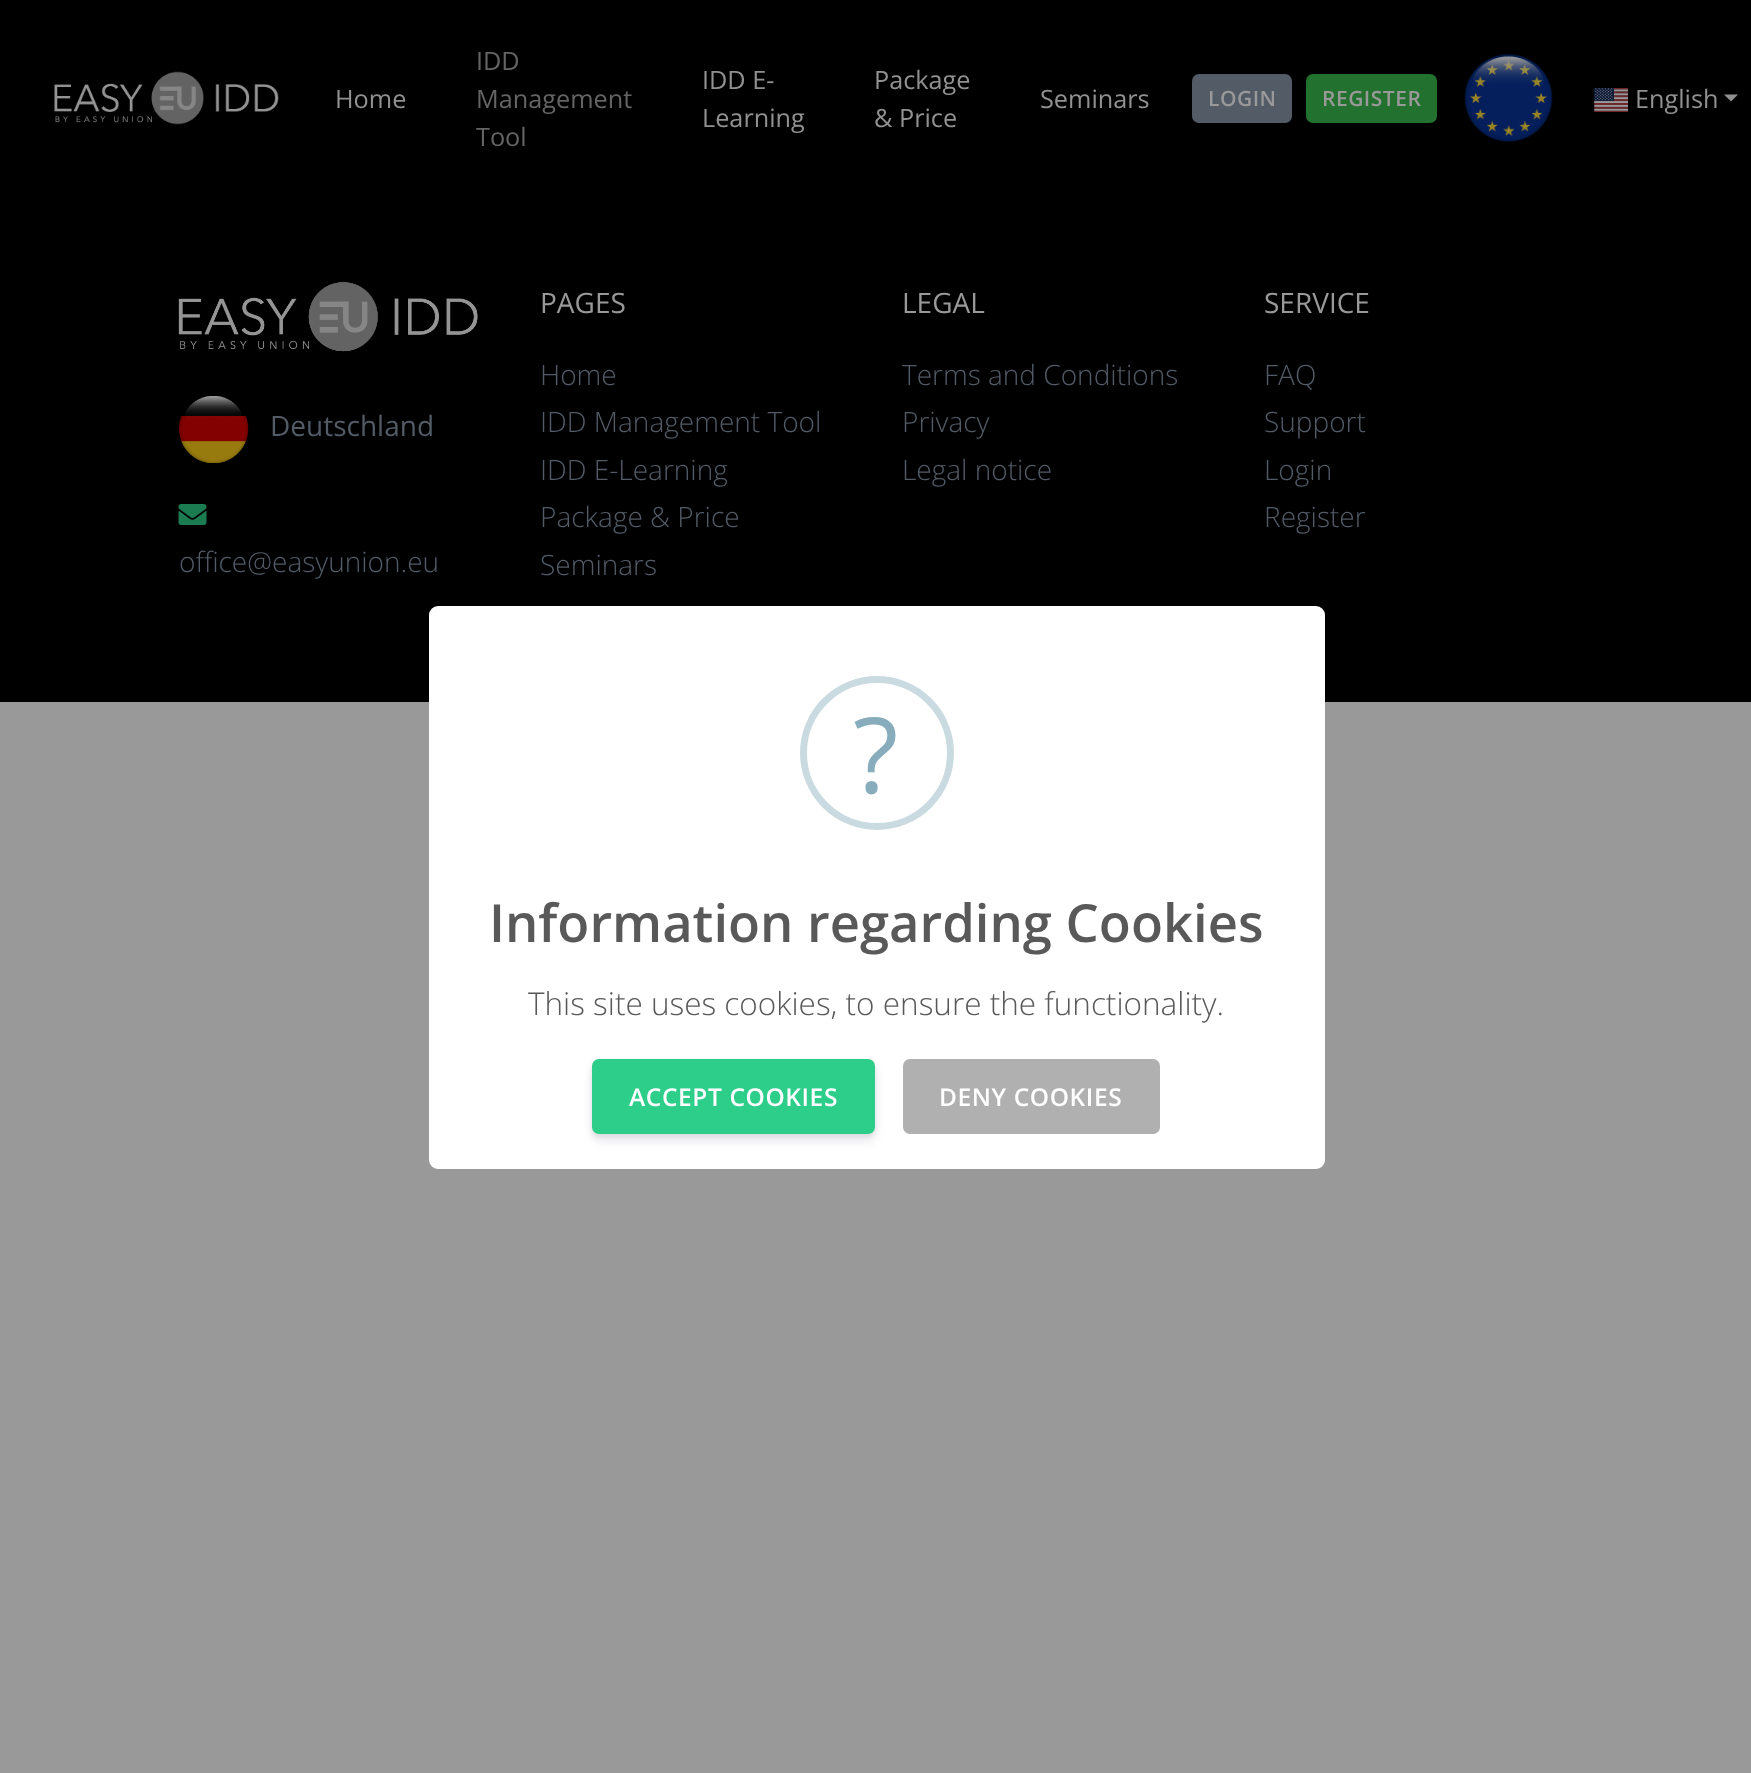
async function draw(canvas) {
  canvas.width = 1751;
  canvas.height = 1773;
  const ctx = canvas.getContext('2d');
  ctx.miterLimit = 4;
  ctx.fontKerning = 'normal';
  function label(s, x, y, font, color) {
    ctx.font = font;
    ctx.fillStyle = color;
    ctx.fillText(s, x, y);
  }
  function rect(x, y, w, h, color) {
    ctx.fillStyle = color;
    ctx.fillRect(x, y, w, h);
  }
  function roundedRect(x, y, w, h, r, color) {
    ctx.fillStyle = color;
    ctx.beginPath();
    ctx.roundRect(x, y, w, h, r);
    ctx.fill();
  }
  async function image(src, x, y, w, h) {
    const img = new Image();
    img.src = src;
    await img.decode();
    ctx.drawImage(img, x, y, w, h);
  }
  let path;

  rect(0, 0, 1751, 1773, '#999');
  rect(0, 0, 1751, 702, '#000');
  await image('assets/img1.png', 54, 71, 225, 54);
  label('Home', 335, 108, '25.25px Open Sans', '#919191');
  label('IDD', 476, 70, '25.25px Open Sans', '#646464');
  label('Management', 476, 108, '25.25px Open Sans', '#646464');
  label('Tool', 476, 146, '25.25px Open Sans', '#646464');
  label('IDD E-', 702, 89, '25.25px Open Sans', '#919191');
  label('Learning', 702, 127, '25.25px Open Sans', '#919191');
  label('Package', 874, 89, '25.25px Open Sans', '#919191');
  label('& Price', 874, 127, '25.25px Open Sans', '#919191');
  label('Seminars', 1040, 108, '25.25px Open Sans', '#919191');
  roundedRect(1192, 74, 100, 49, 7, '#525b66');
  ctx.letterSpacing = '0.5px';
  label('LOGIN', 1208, 106, '600 21px Open Sans', '#999');
  roundedRect(1306, 74, 131, 49, 7, '#23712e');
  label('REGISTER', 1322, 106, '600 21px Open Sans', '#999');
  await image('assets/img2.png', 1464, 54, 89, 88);
  await image('assets/img3.png', 1594, 88, 34, 24);
  ctx.letterSpacing = '0px';
  label('English', 1635, 108, '25.25px Open Sans', '#919191');
  path = new Path2D('M1724 94.5H1738L1731 101.5Z');
  ctx.fill(path);
  await image('assets/img4.png', 178, 281, 300, 71);
  await image('assets/img5.png', 179, 396, 70, 67);
  label('Deutschland', 270, 436, '28px Open Sans', '#525b66');
  await image('assets/img6.png', 178, 504, 29, 21);
  label('office@easyunion.eu', 179, 572, '300 28px Open Sans', '#525b66');
  label('PAGES', 540, 313, '28px Open Sans', '#999');
  label('Home', 540, 385, '300 28px Open Sans', '#525b66');
  label('IDD Management Tool', 540, 432, '300 28px Open Sans', '#525b66');
  label('IDD E-Learning', 540, 480, '300 28px Open Sans', '#525b66');
  label('Package & Price', 540, 527, '300 28px Open Sans', '#525b66');
  label('Seminars', 540, 575, '300 28px Open Sans', '#525b66');
  label('LEGAL', 902, 313, '28px Open Sans', '#999');
  label('Terms and Conditions', 902, 385, '300 28px Open Sans', '#525b66');
  label('Privacy', 902, 432, '300 28px Open Sans', '#525b66');
  label('Legal notice', 902, 480, '300 28px Open Sans', '#525b66');
  label('SERVICE', 1264, 313, '28px Open Sans', '#999');
  label('FAQ', 1264, 385, '300 28px Open Sans', '#525b66');
  label('Support', 1264, 432, '300 28px Open Sans', '#525b66');
  label('Login', 1264, 480, '300 28px Open Sans', '#525b66');
  label('Register', 1264, 527, '300 28px Open Sans', '#525b66');
  roundedRect(429, 606, 896, 563, 9, '#fff');
  ctx.beginPath();
  ctx.arc(877, 753, 73.5, 0, 2 * Math.PI);
  ctx.strokeStyle = '#c9dae1';
  ctx.lineWidth = 7;
  ctx.stroke();
  label('?', 853, 793, '105px Open Sans', '#87adbd');
  label('Information regarding Cookies', 489, 942, '600 52.5px Open Sans', '#595959');
  label('This site uses cookies, to ensure the functionality.', 528, 1015, '300 31.5px Open Sans', '#595959');
  ctx.fillStyle = '#00000014';
  ctx.filter = 'blur(2.5px)';
  ctx.beginPath();
  ctx.roundRect(592, 1061, 283, 75, 7);
  ctx.fill();
  ctx.filter = 'none';
  ctx.fillStyle = '#32325d1c';
  ctx.filter = 'blur(5px)';
  ctx.beginPath();
  ctx.roundRect(592, 1066, 283, 75, 7);
  ctx.fill();
  ctx.filter = 'none';
  ctx.fillStyle = '#2dce89';
  ctx.beginPath();
  ctx.roundRect(593, 1060, 281, 73, 6);
  ctx.fill();
  ctx.strokeStyle = '#2dce89';
  ctx.lineWidth = 2;
  ctx.stroke();
  ctx.letterSpacing = '0.6px';
  label('ACCEPT COOKIES', 629, 1106, '600 24.5px Open Sans', '#fff');
  roundedRect(903, 1059, 257, 75, 7, '#b1b0b0');
  label('DENY COOKIES', 939, 1106, '600 24.5px Open Sans', '#fff');
}

draw(document.querySelector('canvas'));
